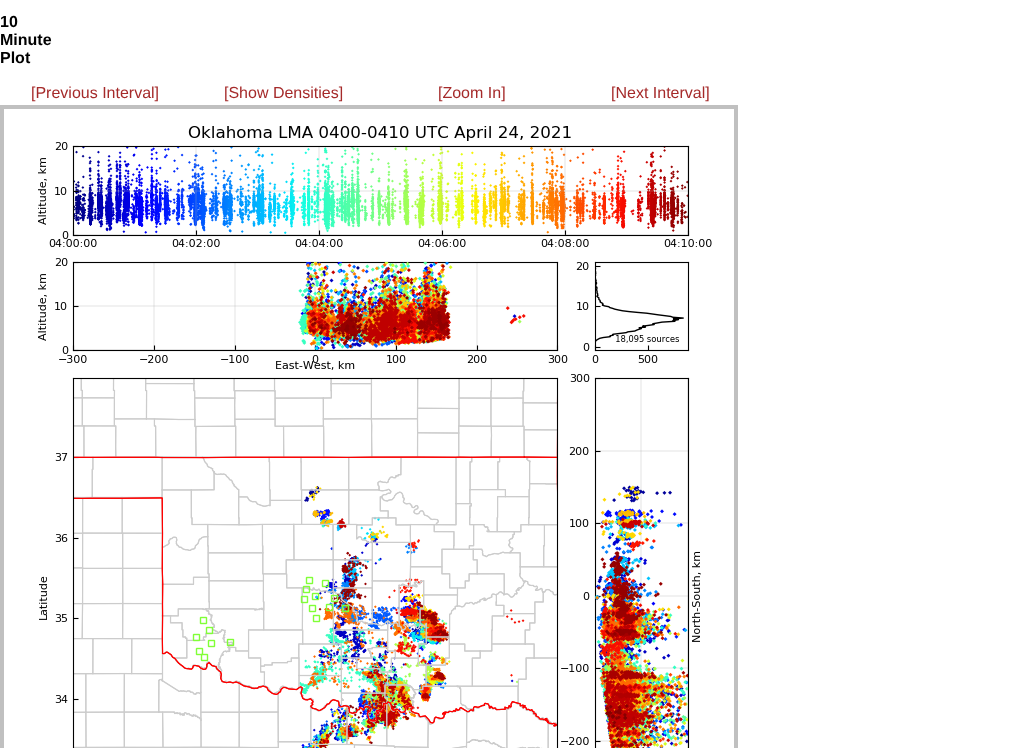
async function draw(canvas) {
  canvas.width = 1029;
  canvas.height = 748;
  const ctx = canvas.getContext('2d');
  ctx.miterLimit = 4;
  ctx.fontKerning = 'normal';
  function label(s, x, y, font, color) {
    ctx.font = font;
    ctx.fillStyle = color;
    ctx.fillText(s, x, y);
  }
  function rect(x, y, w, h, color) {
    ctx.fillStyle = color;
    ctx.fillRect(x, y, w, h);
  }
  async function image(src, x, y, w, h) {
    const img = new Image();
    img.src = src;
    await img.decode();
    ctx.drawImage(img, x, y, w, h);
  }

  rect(0, 0, 1029, 748, '#fff');
  label('10', 0, 27, 'bold 16px Liberation Sans', '#000');
  label('Minute', 0, 45, 'bold 16px Liberation Sans', '#000');
  label('Plot', 0, 63, 'bold 16px Liberation Sans', '#000');
  label('[Previous Interval]', 31, 98, '16px Liberation Sans', '#a52a2a');
  label('[Show Densities]', 224, 98, '16px Liberation Sans', '#a52a2a');
  label('[Zoom In]', 438, 98, '16px Liberation Sans', '#a52a2a');
  label('[Next Interval]', 611, 98, '16px Liberation Sans', '#a52a2a');
  await image('assets/img1.png', 0, 105, 738, 643);
}

draw(document.querySelector('canvas'));
